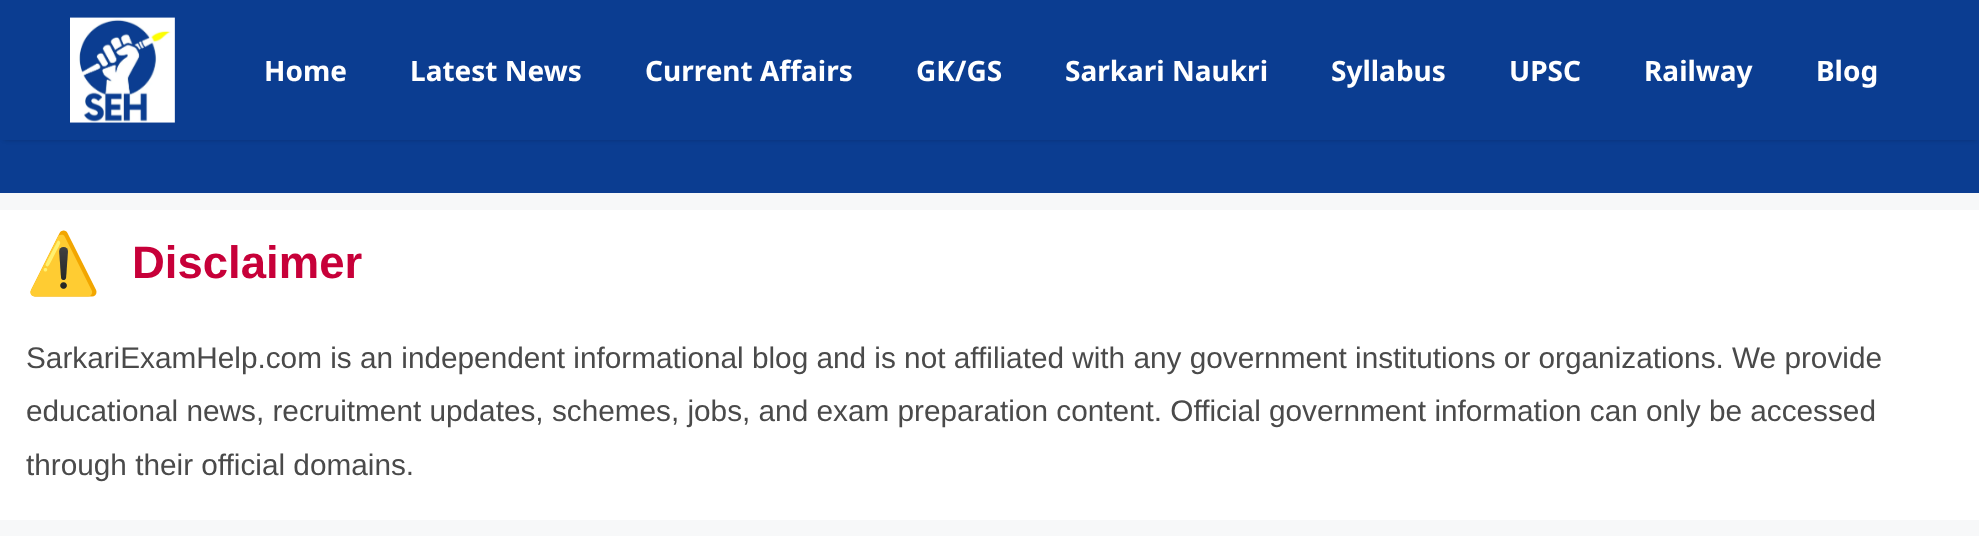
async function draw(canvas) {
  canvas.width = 1979;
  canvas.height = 536;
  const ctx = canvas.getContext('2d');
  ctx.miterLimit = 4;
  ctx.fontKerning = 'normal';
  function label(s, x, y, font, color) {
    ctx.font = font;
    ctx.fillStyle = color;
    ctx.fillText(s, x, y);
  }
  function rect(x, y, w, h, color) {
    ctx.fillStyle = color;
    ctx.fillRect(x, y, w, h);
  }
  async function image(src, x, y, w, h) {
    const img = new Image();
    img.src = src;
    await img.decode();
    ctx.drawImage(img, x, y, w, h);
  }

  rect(0, 0, 1979, 536, '#f7f8f9');
  rect(0, 140, 1979, 53, '#0b3d91');
  ctx.fillStyle = '#00000033';
  ctx.filter = 'blur(2px)';
  ctx.beginPath();
  ctx.rect(4, 7, 1972, 133);
  ctx.fill();
  ctx.filter = 'none';
  rect(0, 0, 1979, 140, '#0b3d91');
  await image('assets/img1.png', 70, 17, 105, 106);
  label('Home', 264, 81, 'bold 28px Noto Sans', '#fff');
  label('Latest News', 410, 81, 'bold 28px Noto Sans', '#fff');
  label('Current Affairs', 645, 81, 'bold 28px Noto Sans', '#fff');
  label('GK/GS', 916, 81, 'bold 28px Noto Sans', '#fff');
  label('Sarkari Naukri', 1065, 81, 'bold 28px Noto Sans', '#fff');
  label('Syllabus', 1331, 81, 'bold 28px Noto Sans', '#fff');
  label('UPSC', 1509, 81, 'bold 28px Noto Sans', '#fff');
  label('Railway', 1644, 81, 'bold 28px Noto Sans', '#fff');
  label('Blog', 1816, 81, 'bold 28px Noto Sans', '#fff');
  rect(0, 210, 1979, 310, '#fff');
  label('⚠️', 26, 284, 'bold 60px Noto Color Emoji', '#ff5733');
  label('Disclaimer', 132, 278, 'bold 45.5px Liberation Sans', '#c70039');
  label('SarkariExamHelp.com is an independent informational blog and is not affiliated with any government institutions or organizations. We provide', 26, 368, '29.75px Liberation Sans', '#4a4a4a');
  label('educational news, recruitment updates, schemes, jobs, and exam preparation content. Official government information can only be accessed', 26, 421, '29.75px Liberation Sans', '#4a4a4a');
  label('through their official domains.', 26, 475, '29.75px Liberation Sans', '#4a4a4a');
}

draw(document.querySelector('canvas'));
